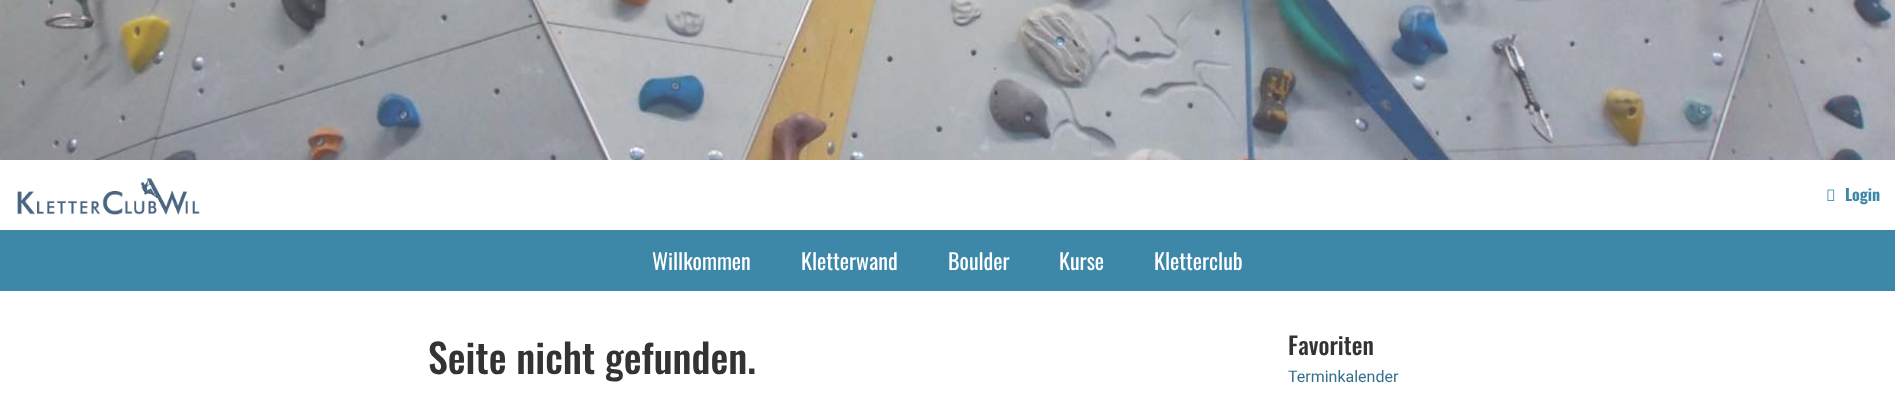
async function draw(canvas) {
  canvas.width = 1895;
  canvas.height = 399;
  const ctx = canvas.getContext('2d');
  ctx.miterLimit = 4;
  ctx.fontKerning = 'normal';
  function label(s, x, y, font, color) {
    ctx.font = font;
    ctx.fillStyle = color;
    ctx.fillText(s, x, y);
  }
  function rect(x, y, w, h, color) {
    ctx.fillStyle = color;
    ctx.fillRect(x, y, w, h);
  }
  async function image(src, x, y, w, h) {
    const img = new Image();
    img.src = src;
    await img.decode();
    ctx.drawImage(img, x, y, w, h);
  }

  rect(0, 0, 1895, 399, '#fff');
  await image('assets/img1.png', 0, 0, 1895, 160);
  await image('assets/img2.png', 17, 178, 183, 37);
  await image('assets/img3.png', 1827, 189, 8, 12);
  label('Login', 1845, 201, 'bold 16px Oswald', '#3d87a9');
  rect(0, 230, 1895, 61, '#3d87a9');
  label('Willkommen', 652, 270, '22px Oswald', '#fff');
  label('Kletterwand', 801, 270, '22px Oswald', '#fff');
  label('Boulder', 948, 270, '22px Oswald', '#fff');
  label('Kurse', 1059, 270, '22px Oswald', '#fff');
  label('Kletterclub', 1154, 270, '22px Oswald', '#fff');
  label('Seite nicht gefunden.', 428, 374, '500 40px Oswald', '#333');
  label('Favoriten', 1288, 355, '500 24px Oswald', '#333');
  label('Terminkalender', 1288, 382, '16px Roboto', '#33708c');
}

draw(document.querySelector('canvas'));
